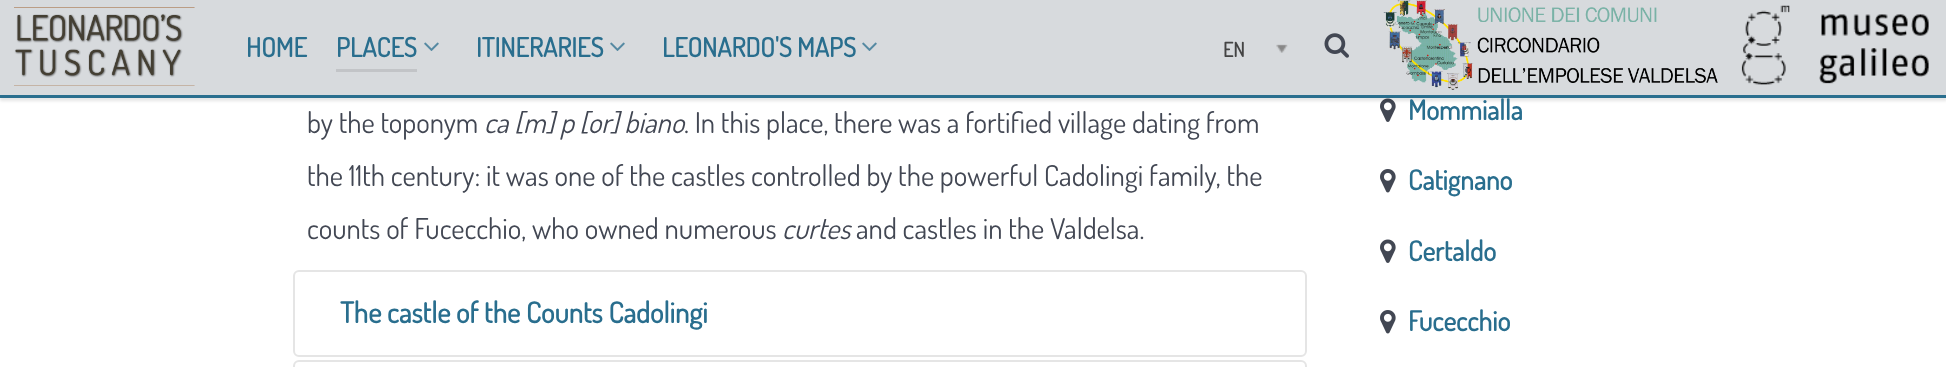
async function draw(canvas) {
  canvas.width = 1946;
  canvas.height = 367;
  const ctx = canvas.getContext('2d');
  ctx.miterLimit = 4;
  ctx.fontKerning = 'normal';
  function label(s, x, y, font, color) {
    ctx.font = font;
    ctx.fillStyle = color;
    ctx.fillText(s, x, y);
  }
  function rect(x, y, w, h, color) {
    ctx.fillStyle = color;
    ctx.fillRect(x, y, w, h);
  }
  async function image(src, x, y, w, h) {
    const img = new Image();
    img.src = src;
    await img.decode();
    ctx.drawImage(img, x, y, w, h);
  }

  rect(0, 0, 1946, 367, '#fff');
  await image('assets/img7.png', 1380, 98, 16, 24);
  ctx.fillStyle = '#0000001a';
  ctx.filter = 'blur(1.5px)';
  ctx.beginPath();
  ctx.rect(0, 3, 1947, 98);
  ctx.fill();
  ctx.filter = 'none';
  rect(0, 0, 1946, 95, '#d7dadd');
  rect(0, 95, 1946, 3, '#296e8e');
  await image('assets/img1.png', 14, 7, 181, 79);
  label('HOME', 246, 57, 'bold 26.5px Dosis', '#296e8e');
  rect(336, 69, 81, 3, '#c2c4c7');
  label('PLACES', 336, 57, 'bold 26.5px Dosis', '#296e8e');
  await image('assets/img2.png', 424, 42, 15, 9);
  label('ITINERARIES', 476, 57, 'bold 26.5px Dosis', '#296e8e');
  await image('assets/img2.png', 610, 42, 15, 9);
  label('LEONARDO\'S MAPS', 662, 57, 'bold 26.5px Dosis', '#296e8e');
  await image('assets/img2.png', 862, 42, 15, 9);
  label('EN', 1223, 57, 'bold 20px Dosis', '#444');
  await image('assets/img3.png', 1276, 44, 12, 9);
  await image('assets/img4.png', 1324, 33, 25, 25);
  await image('assets/img5.png', 1383, 0, 335, 90);
  await image('assets/img6.png', 1741, 5, 188, 80);
  label('by the toponym', 307, 133, '28.8px Dosis', '#424753');
  label('ca [m] p [or] biano', 484, 133, 'italic 28.8px Dosis', '#424753');
  label('. In this place, there was a fortified village dating from', 684, 133, '28.8px Dosis', '#424753');
  label('the 11th century: it was one of the castles controlled by the powerful Cadolingi family, the', 307, 186, '28.8px Dosis', '#424753');
  label('counts of Fucecchio, who owned numerous', 307, 239, '28.8px Dosis', '#424753');
  label('curtes', 782, 239, 'italic 28.8px Dosis', '#424753');
  label('and castles in the Valdelsa.', 856, 239, '28.8px Dosis', '#424753');
  ctx.beginPath();
  ctx.roundRect(294, 271, 1012, 85, 5);
  ctx.strokeStyle = '#e5e5e5';
  ctx.lineWidth = 2;
  ctx.stroke();
  label('The castle of the Counts Cadolingi', 340, 323, 'bold 28.8px Dosis', '#296e8e');
  ctx.beginPath();
  ctx.roundRect(294, 361, 1012, 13, 5);
  ctx.stroke();
  label('Mommialla', 1408, 120, 'bold 27.5px Dosis', '#296e8e');
  await image('assets/img8.png', 1380, 169, 16, 24);
  label('Catignano', 1408, 190, 'bold 27.5px Dosis', '#296e8e');
  await image('assets/img7.png', 1380, 239, 16, 24);
  label('Certaldo', 1408, 261, 'bold 27.5px Dosis', '#296e8e');
  await image('assets/img8.png', 1380, 310, 16, 24);
  label('Fucecchio', 1408, 331, 'bold 27.5px Dosis', '#296e8e');
}

draw(document.querySelector('canvas'));
